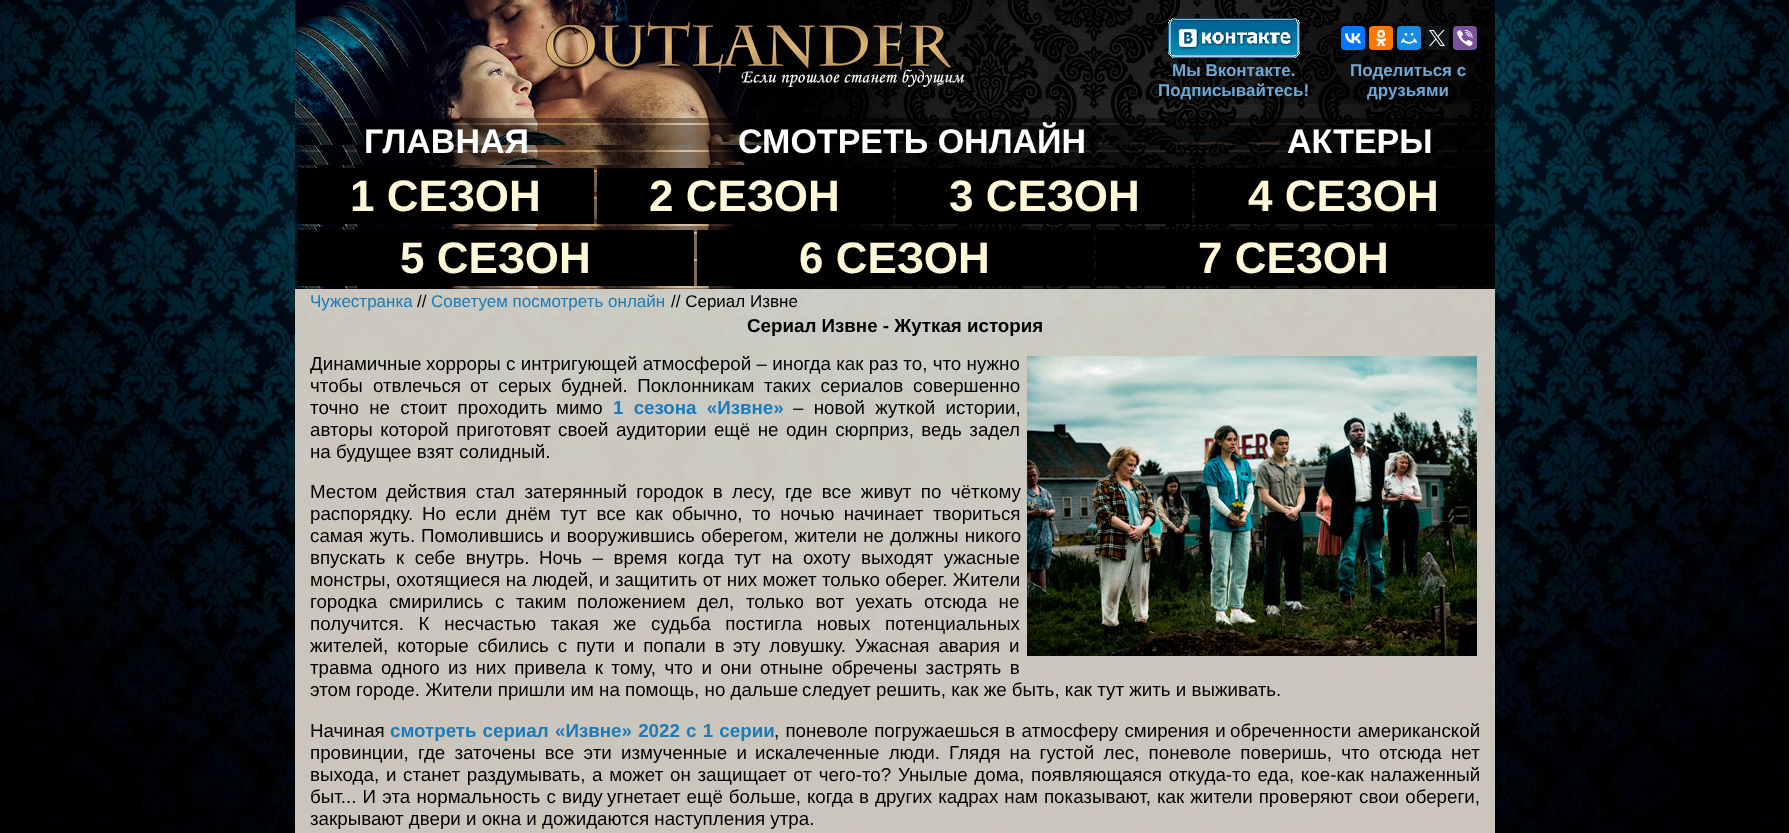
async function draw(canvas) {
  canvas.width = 1789;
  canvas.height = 833;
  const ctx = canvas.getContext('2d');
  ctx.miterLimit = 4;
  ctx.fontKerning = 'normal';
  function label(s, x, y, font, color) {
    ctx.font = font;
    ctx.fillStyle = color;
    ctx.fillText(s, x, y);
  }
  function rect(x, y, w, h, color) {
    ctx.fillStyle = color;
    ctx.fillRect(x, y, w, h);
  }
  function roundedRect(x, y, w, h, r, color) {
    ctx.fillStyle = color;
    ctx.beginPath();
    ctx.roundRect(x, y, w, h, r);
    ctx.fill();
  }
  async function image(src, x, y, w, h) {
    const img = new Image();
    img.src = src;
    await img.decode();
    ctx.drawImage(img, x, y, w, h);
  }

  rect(0, 0, 1789, 833, '#fff');
  await image('assets/img1.png', 0, 0, 1789, 833);
  rect(295, 289, 1200, 544, '#e1dacfe6');
  await image('assets/img2.png', 295, 0, 681, 118);
  await image('assets/img3.png', 976, 0, 519, 118);
  await image('assets/img4.png', 1168, 18, 132, 40);
  roundedRect(1341, 26, 24, 24, 4, '#07f');
  await image('assets/img5.png', 1345, 33, 16, 11);
  roundedRect(1369, 26, 24, 24, 4, '#f70');
  await image('assets/img6.png', 1375, 30, 12, 16);
  roundedRect(1397, 26, 24, 24, 4, '#168de2');
  await image('assets/img7.png', 1401, 33, 16, 11);
  roundedRect(1425, 26, 24, 24, 4, '#0f1419');
  await image('assets/img8.png', 1429, 30, 16, 16);
  roundedRect(1453, 26, 24, 24, 4, '#7b519d');
  await image('assets/img9.png', 1457, 30, 16, 16);
  label('Мы Вконтакте.', 1172, 76, 'bold 17px Liberation Sans', '#6ea9d6');
  label('Подписывайтесь!', 1158, 96, 'bold 17px Liberation Sans', '#6ea9d6');
  label('Поделиться с', 1350, 76, 'bold 17px Liberation Sans', '#6ea9d6');
  label('друзьями', 1367, 96, 'bold 17px Liberation Sans', '#6ea9d6');
  await image('assets/img10.png', 295, 118, 1200, 47);
  label('ГЛАВНАЯ', 364, 153, 'bold 34px Liberation Sans', '#fff');
  label('СМОТРЕТЬ ОНЛАЙН', 738, 153, 'bold 34px Liberation Sans', '#fff');
  label('АКТЕРЫ', 1287, 153, 'bold 34px Liberation Sans', '#fff');
  await image('assets/img11.png', 295, 165, 1200, 62);
  rect(298, 168, 296, 56, '#000');
  label('1 СЕЗОН', 350, 211, 'bold 44px Liberation Sans', '#fff8d8');
  rect(597, 168, 296, 56, '#000');
  label('2 СЕЗОН', 649, 211, 'bold 44px Liberation Sans', '#fff8d8');
  rect(896, 168, 296, 56, '#000');
  label('3 СЕЗОН', 949, 211, 'bold 44px Liberation Sans', '#fff8d8');
  rect(1195, 168, 297, 56, '#000');
  label('4 СЕЗОН', 1248, 211, 'bold 44px Liberation Sans', '#fff8d8');
  await image('assets/img11.png', 295, 227, 1200, 62);
  rect(298, 230, 396, 56, '#000');
  label('5 СЕЗОН', 400, 273, 'bold 44px Liberation Sans', '#fff8d8');
  rect(697, 230, 396, 56, '#000');
  label('6 СЕЗОН', 799, 273, 'bold 44px Liberation Sans', '#fff8d8');
  rect(1096, 230, 396, 56, '#000');
  label('7 СЕЗОН', 1198, 273, 'bold 44px Liberation Sans', '#fff8d8');
  label('Чужестранка', 310, 307, '17px Liberation Sans', '#1a7bba');
  label('//', 417, 307, '17px Liberation Sans', '#000');
  label('Советуем посмотреть онлайн', 431, 307, '17px Liberation Sans', '#1a7bba');
  label('// Сериал Извне', 671, 307, '17px Liberation Sans', '#000');
  label('Сериал Извне - Жуткая история', 747, 332, 'bold 18.75px Liberation Sans', '#000');
  label('Динамичные', 310, 370, '18.75px Liberation Sans', '#000');
  ctx.wordSpacing = '0.1px';
  label('хорроры с интригующей атмосферой – иногда как раз то, что нужно', 426, 370, '18.75px Liberation Sans', '#000');
  await image('assets/img12.png', 1027, 356, 450, 300);
  ctx.wordSpacing = '5px';
  label('чтобы отвлечься', 310, 392, '18.75px Liberation Sans', '#000');
  ctx.wordSpacing = '4.5px';
  label('от серых будней. Поклонникам таких сериалов совершенно', 470, 392, '18.75px Liberation Sans', '#000');
  ctx.wordSpacing = '5px';
  label('точно не стоит проходить', 310, 414, '18.75px Liberation Sans', '#000');
  ctx.wordSpacing = '0px';
  label('мимо', 556, 414, '18.75px Liberation Sans', '#000');
  ctx.wordSpacing = '5px';
  label('1 сезона «Извне»', 613, 414, 'bold 18.75px Liberation Sans', '#1a7bba');
  label('– новой жуткой истории,', 793, 414, '18.75px Liberation Sans', '#000');
  ctx.wordSpacing = '2.25px';
  label('авторы которой приготовят', 310, 436, '18.75px Liberation Sans', '#000');
  label('своей аудитории ещё не один сюрприз, ведь задел', 558, 436, '18.75px Liberation Sans', '#000');
  ctx.wordSpacing = '0px';
  label('на будущее взят солидный.', 310, 458, '18.75px Liberation Sans', '#000');
  label('Местом', 310, 498, '18.75px Liberation Sans', '#000');
  ctx.wordSpacing = '4.25px';
  label('действия стал затерянный городок в лесу, где все живут по чёткому', 386, 498, '18.75px Liberation Sans', '#000');
  ctx.wordSpacing = '0px';
  label('распорядку.', 310, 520, '18.75px Liberation Sans', '#000');
  ctx.wordSpacing = '4.25px';
  label('Но если днём тут все как обычно, то ночью начинает твориться', 422, 520, '18.75px Liberation Sans', '#000');
  ctx.wordSpacing = '1px';
  label('самая жуть.', 310, 542, '18.75px Liberation Sans', '#000');
  label('Помолившись и вооружившись оберегом, жители не должны никого', 421, 542, '18.75px Liberation Sans', '#000');
  ctx.wordSpacing = '5.25px';
  label('впускать к себе внутрь.', 310, 564, '18.75px Liberation Sans', '#000');
  label('Ночь – время когда тут на охоту выходят ужасные', 539, 564, '18.75px Liberation Sans', '#000');
  ctx.wordSpacing = '0.25px';
  label('монстры, охотящиеся на людей, и защитить от них может только оберег. Жители', 310, 586, '18.75px Liberation Sans', '#000');
  ctx.wordSpacing = '6.5px';
  label('городка смирились с таким', 310, 608, '18.75px Liberation Sans', '#000');
  label('положением дел, только вот уехать отсюда не', 577, 608, '18.75px Liberation Sans', '#000');
  ctx.wordSpacing = '9.5px';
  label('получится. К несчастью такая же', 310, 630, '18.75px Liberation Sans', '#000');
  label('судьба постигла новых потенциальных', 651, 630, '18.75px Liberation Sans', '#000');
  ctx.wordSpacing = '3.75px';
  label('жителей, которые сбились с пути и попали в', 310, 652, '18.75px Liberation Sans', '#000');
  label('эту ловушку. Ужасная авария и', 733, 652, '18.75px Liberation Sans', '#000');
  ctx.wordSpacing = '3.25px';
  label('травма одного из них привела к тому, что и они', 310, 674, '18.75px Liberation Sans', '#000');
  label('отныне обречены застрять в', 760, 674, '18.75px Liberation Sans', '#000');
  ctx.wordSpacing = '0px';
  label('этом городе. Жители пришли им на помощь, но дальше', 310, 696, '18.75px Liberation Sans', '#000');
  label('следует решить, как же быть, как тут жить и выживать.', 802, 696, '18.75px Liberation Sans', '#000');
  label('Начиная', 310, 737, '18.75px Liberation Sans', '#000');
  ctx.wordSpacing = '0.75px';
  label('смотреть сериал', 390, 737, 'bold 18.75px Liberation Sans', '#1a7bba');
  ctx.wordSpacing = '1px';
  label('«Извне» 2022 с 1 серии', 555, 737, 'bold 18.75px Liberation Sans', '#1a7bba');
  label(', поневоле погружаешься в атмосферу смирения и', 774, 737, '18.75px Liberation Sans', '#000');
  label('обреченности американской', 1230, 737, '18.75px Liberation Sans', '#000');
  ctx.wordSpacing = '4px';
  label('провинции, где заточены все эти измученные и', 310, 759, '18.75px Liberation Sans', '#000');
  label('искалеченные люди. Глядя на густой лес, поневоле поверишь, что отсюда нет', 755, 759, '18.75px Liberation Sans', '#000');
  ctx.wordSpacing = '1.5px';
  label('выхода, и станет раздумывать, а может он защищает от чего-то? Унылые дома,', 310, 781, '18.75px Liberation Sans', '#000');
  label('появляющаяся откуда-то еда, кое-как налаженный', 1031, 781, '18.75px Liberation Sans', '#000');
  ctx.wordSpacing = '1px';
  label('быт... И эта нормальность с виду', 310, 803, '18.75px Liberation Sans', '#000');
  ctx.wordSpacing = '0.75px';
  label('угнетает ещё больше, когда в других кадрах нам показывают, как жители проверяют', 607, 803, '18.75px Liberation Sans', '#000');
  ctx.wordSpacing = '1px';
  label('свои обереги,', 1359, 803, '18.75px Liberation Sans', '#000');
  ctx.wordSpacing = '0px';
  label('закрывают двери и окна и дожидаются наступления утра.', 310, 825, '18.75px Liberation Sans', '#000');
}

draw(document.querySelector('canvas'));
